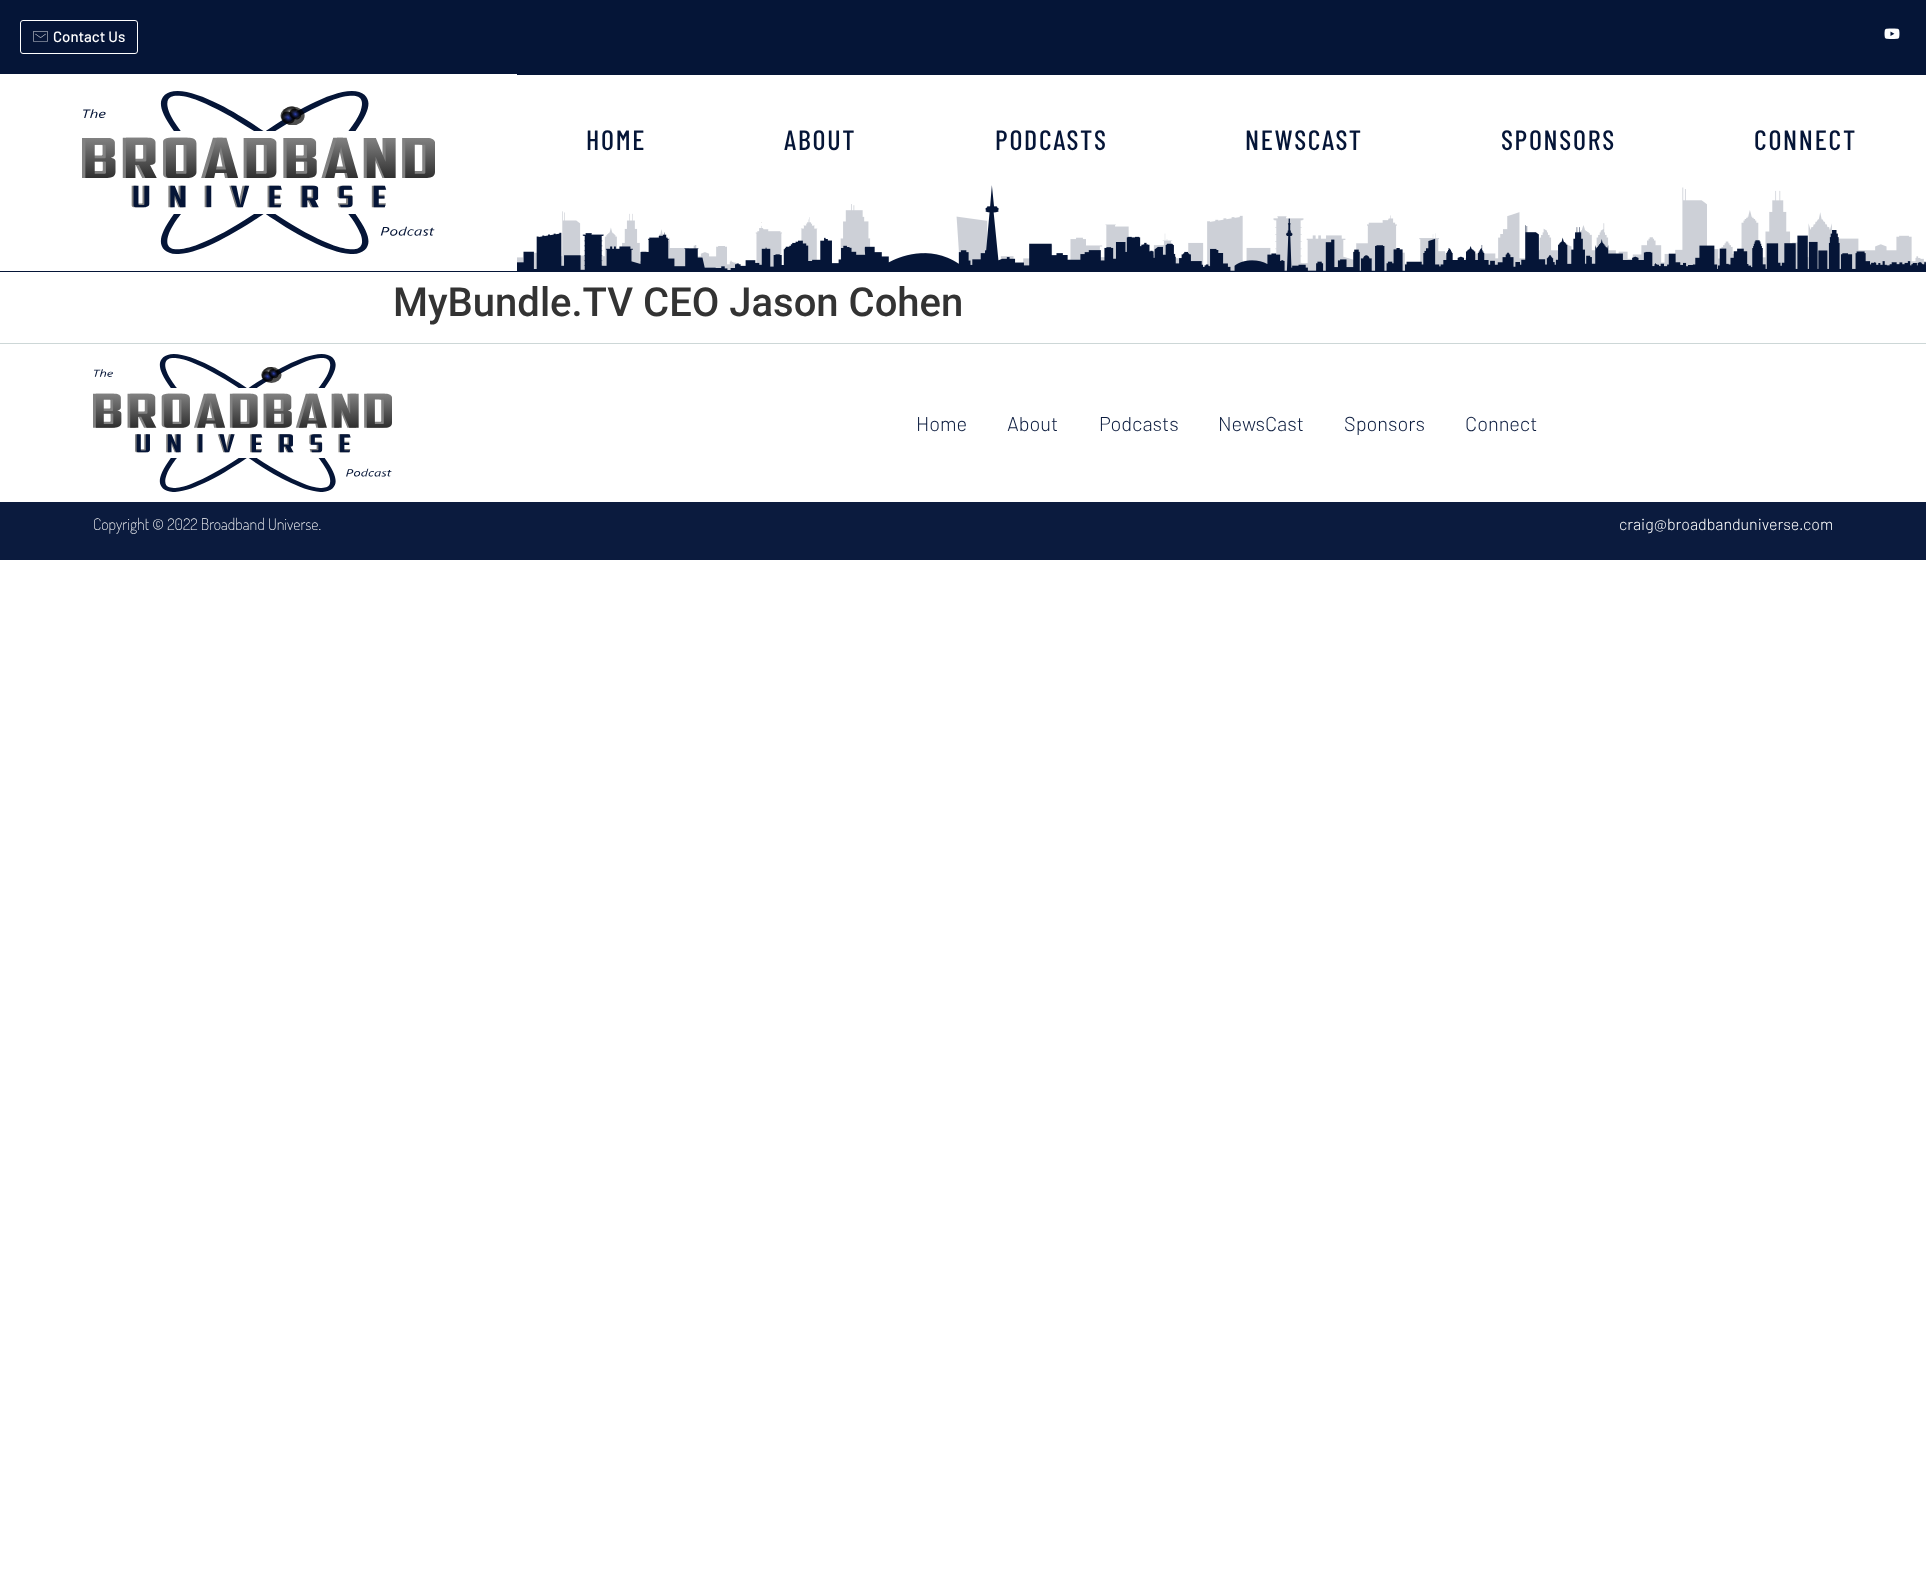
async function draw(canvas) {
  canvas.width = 1926;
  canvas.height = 1587;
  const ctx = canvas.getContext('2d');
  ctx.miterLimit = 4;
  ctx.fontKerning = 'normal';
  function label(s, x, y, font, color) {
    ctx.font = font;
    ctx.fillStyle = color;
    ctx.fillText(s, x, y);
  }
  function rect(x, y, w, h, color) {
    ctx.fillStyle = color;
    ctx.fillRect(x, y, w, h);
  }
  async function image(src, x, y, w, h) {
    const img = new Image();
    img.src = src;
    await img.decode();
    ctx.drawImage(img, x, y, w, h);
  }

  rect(0, 0, 1926, 1587, '#fff');
  rect(0, 0, 1926, 74, '#051537');
  ctx.beginPath();
  ctx.roundRect(20.5, 20.5, 117, 33, 2.5);
  ctx.strokeStyle = '#fff';
  ctx.stroke();
  await image('assets/img1.png', 33, 31, 15, 11);
  label('Contact Us', 53, 42, '500 15px Barlow', '#fff');
  await image('assets/img2.png', 1884, 28, 16, 11);
  await image('assets/img4.png', 0, 185, 1926, 87);
  rect(0, 197, 517, 74, '#fff');
  await image('assets/img3.png', 82, 91, 353, 163);
  rect(517, 74, 1409, 1, '#051537');
  ctx.letterSpacing = '1.75px';
  label('HOME', 586, 150, '500 28px Barlow Condensed', '#051537');
  label('ABOUT', 784, 150, '500 28px Barlow Condensed', '#051537');
  label('PODCASTS', 995, 150, '500 28px Barlow Condensed', '#051537');
  label('NEWSCAST', 1245, 150, '500 28px Barlow Condensed', '#051537');
  label('SPONSORS', 1501, 150, '500 28px Barlow Condensed', '#051537');
  label('CONNECT', 1754, 150, '500 28px Barlow Condensed', '#051537');
  ctx.letterSpacing = '0px';
  label('MyBundle.TV CEO Jason Cohen', 393, 316, '500 40px Roboto', '#333');
  rect(0, 343, 1926, 1, '#cdd7d7');
  await image('assets/img5.png', 93, 354, 299, 138);
  label('Home', 916, 431, '300 20px Barlow', '#0b1b3e');
  label('About', 1007, 431, '300 20px Barlow', '#0b1b3e');
  label('Podcasts', 1099, 431, '300 20px Barlow', '#0b1b3e');
  label('NewsCast', 1218, 431, '300 20px Barlow', '#0b1b3e');
  label('Sponsors', 1344, 431, '300 20px Barlow', '#0b1b3e');
  label('Connect', 1465, 431, '300 20px Barlow', '#0b1b3e');
  rect(0, 502, 1926, 58, '#0b1b3e');
  label('Copyright © 2022 Broadband Universe.', 93, 530, '200 16px Dosis', '#fff');
  label('craig@broadbanduniverse.com', 1619, 530, '300 16px Barlow', '#fff');
}

draw(document.querySelector('canvas'));
